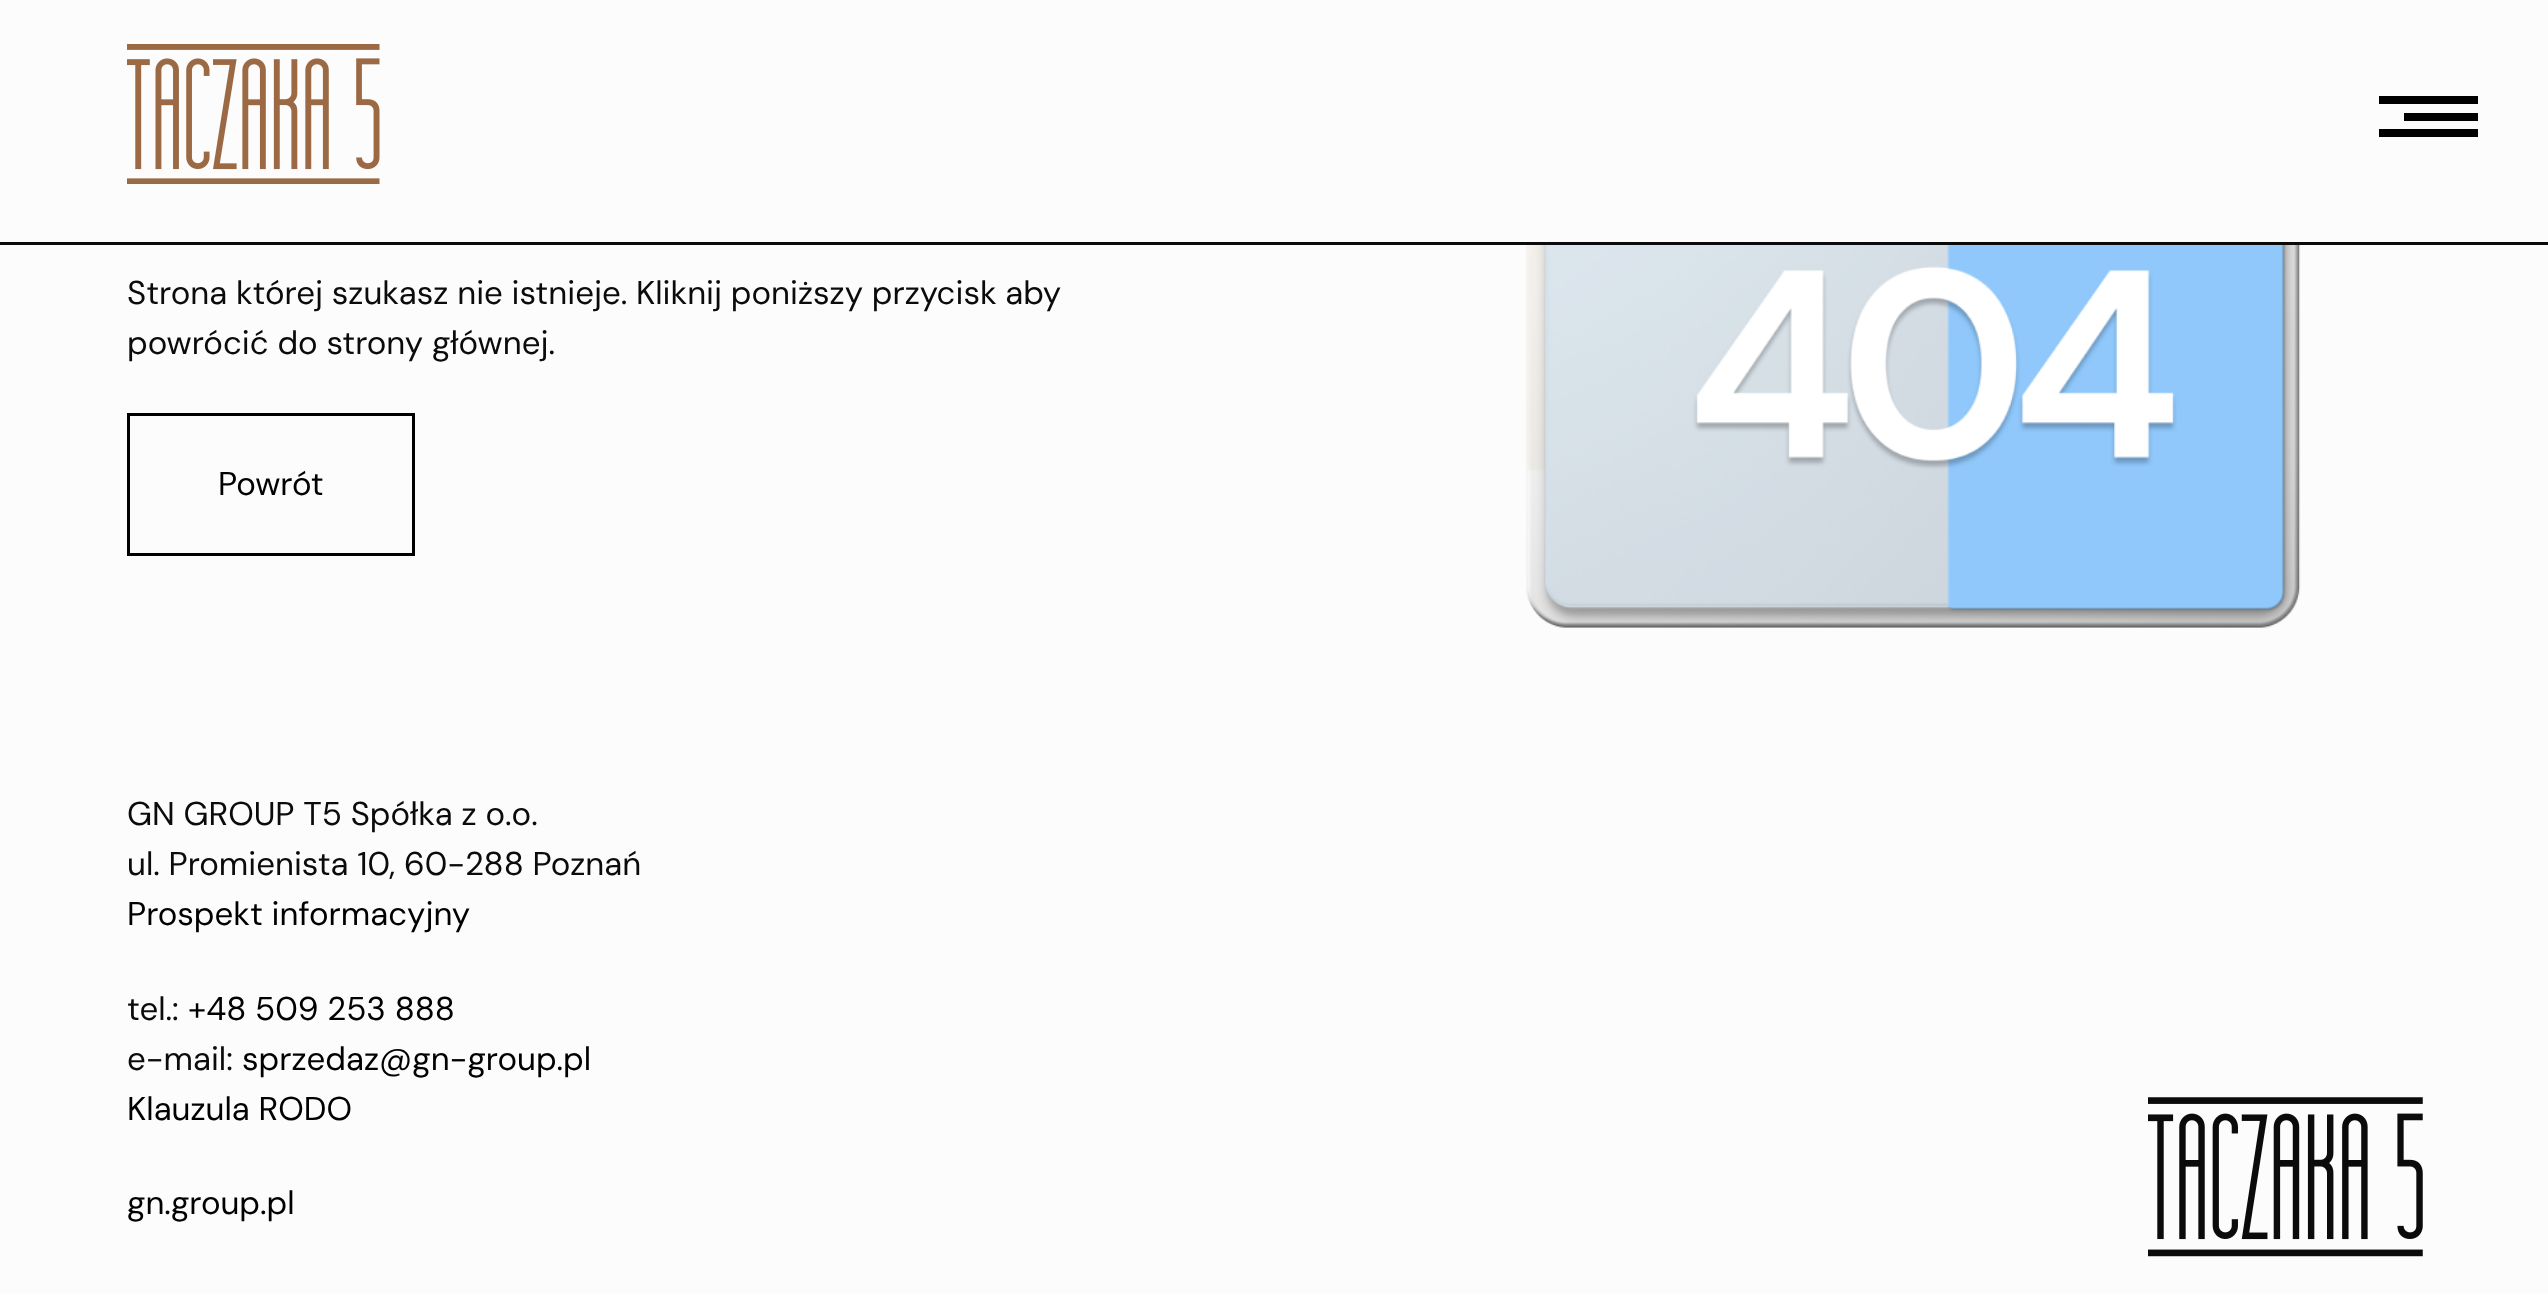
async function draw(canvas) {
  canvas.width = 2548;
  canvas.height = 1294;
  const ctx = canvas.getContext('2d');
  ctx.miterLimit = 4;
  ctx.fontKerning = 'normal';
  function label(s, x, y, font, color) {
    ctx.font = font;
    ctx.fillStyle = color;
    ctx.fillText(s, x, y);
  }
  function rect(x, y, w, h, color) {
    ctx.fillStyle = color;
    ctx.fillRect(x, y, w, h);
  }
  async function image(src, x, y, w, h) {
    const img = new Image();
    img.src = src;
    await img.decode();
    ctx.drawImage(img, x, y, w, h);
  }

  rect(0, 0, 2548, 1294, '#fcfcfc');
  rect(0, 242, 2548, 3, '#0b0b0b');
  await image('assets/img1.png', 127, 44, 253, 140);
  rect(2379, 96, 99, 8, '#000');
  rect(2404, 113, 74, 8, '#000');
  rect(2379, 129, 99, 8, '#000');
  label('Strona której szukasz nie istnieje. Kliknij poniższy przycisk aby', 127, 304, '33px DM Sans', '#0b0b0b');
  label('powrócić do strony głównej.', 127, 354, '33px DM Sans', '#0b0b0b');
  ctx.strokeStyle = '#000';
  ctx.lineWidth = 3;
  ctx.strokeRect(128.5, 414.5, 285, 140);
  label('Powrót', 218, 495, '33px DM Sans', '#000');
  await image('assets/img2.png', 1526, 245, 775, 383);
  label('GN GROUP T5 Spółka z o.o.', 127, 825, '33px DM Sans', '#0b0b0b');
  label('ul. Promienista 10, 60-288 Poznań', 127, 875, '33px DM Sans', '#0b0b0b');
  label('Prospekt informacyjny', 127, 925, '33px DM Sans', '#000');
  label('tel.:', 127, 1020, '33px DM Sans', '#0b0b0b');
  label('+48 509 253 888', 188, 1020, '33px DM Sans', '#000');
  label('e-mail:', 127, 1070, '33px DM Sans', '#0b0b0b');
  label('sprzedaz@gn-group.pl', 242, 1070, '33px DM Sans', '#000');
  label('Klauzula RODO', 127, 1120, '33px DM Sans', '#000');
  label('gn.group.pl', 127, 1214, '33px DM Sans', '#000');
  await image('assets/img3.png', 2148, 1097, 275, 160);
}

draw(document.querySelector('canvas'));
